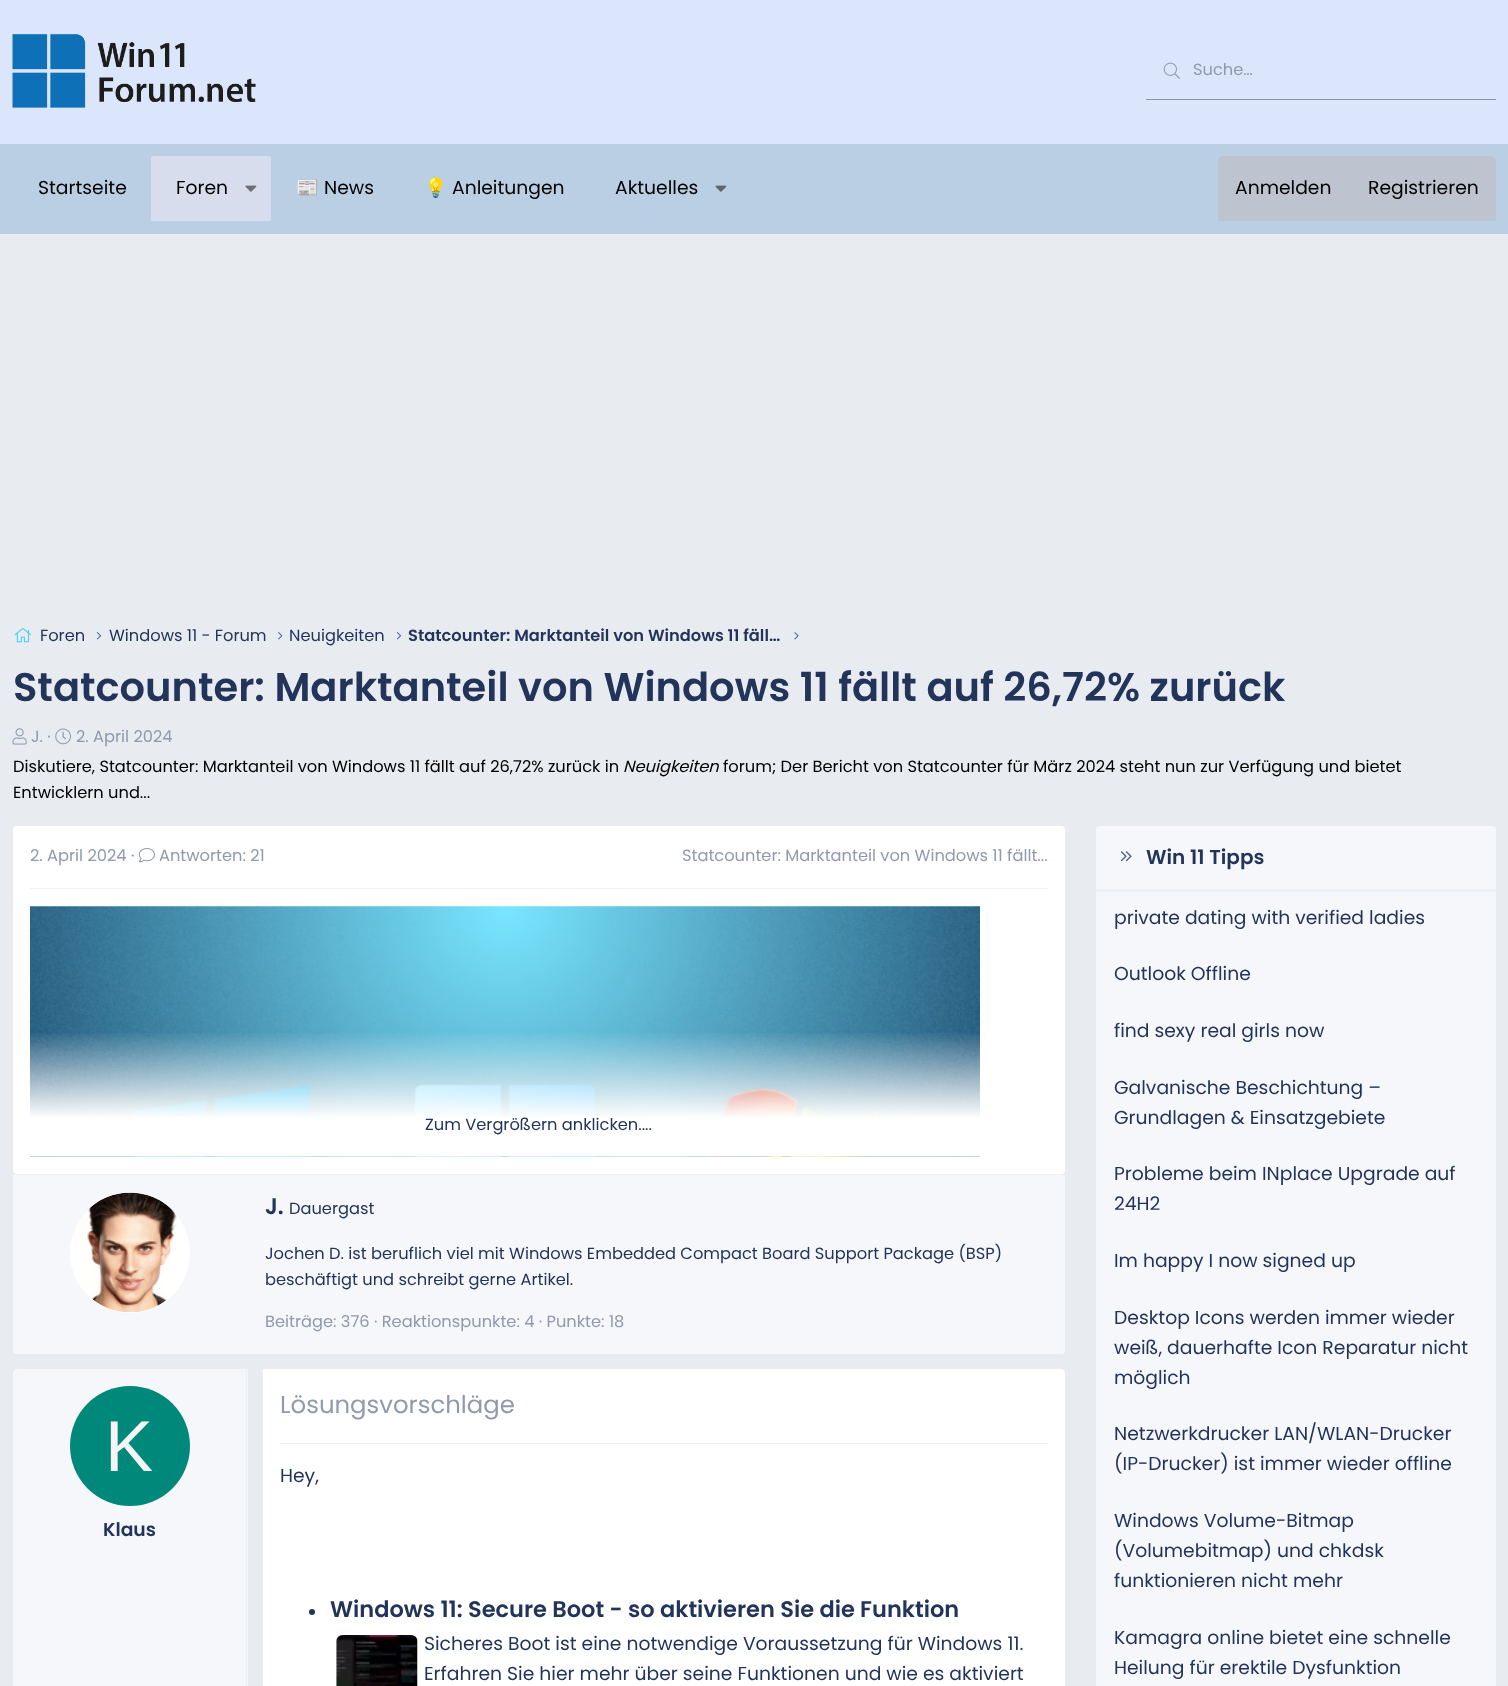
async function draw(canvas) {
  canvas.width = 1508;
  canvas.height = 1686;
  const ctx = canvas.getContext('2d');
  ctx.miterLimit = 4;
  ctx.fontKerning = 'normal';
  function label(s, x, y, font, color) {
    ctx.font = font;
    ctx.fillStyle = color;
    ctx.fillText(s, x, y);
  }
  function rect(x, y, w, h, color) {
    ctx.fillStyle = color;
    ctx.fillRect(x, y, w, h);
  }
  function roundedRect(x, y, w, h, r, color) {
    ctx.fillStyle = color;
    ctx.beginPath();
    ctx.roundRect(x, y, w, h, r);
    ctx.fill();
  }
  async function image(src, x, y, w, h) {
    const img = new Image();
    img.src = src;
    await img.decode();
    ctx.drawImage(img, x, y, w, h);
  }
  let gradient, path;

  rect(0, 0, 1508, 1686, '#e8ebf0');
  rect(0, 0, 1508, 144, '#dbe6fc');
  await image('assets/img1.png', 12, 34, 244, 74);
  await image('assets/img2.png', 1163, 62, 17, 17);
  rect(1146, 99, 350, 1, '#8f94a2');
  label('Suche…', 1193, 75, '16.25px Poppins', '#9199ad');
  rect(0, 144, 1508, 90, '#bacfe4');
  label('Startseite', 38, 194, '18.75px Poppins', '#000');
  ctx.fillStyle = '#d7dded';
  ctx.beginPath();
  ctx.roundRect(151, 156, 120, 65, [2.5, 2.5, 0, 0]);
  ctx.fill();
  label('Foren', 176, 194, '18.75px Poppins', '#000');
  await image('assets/img3.png', 245, 185, 12, 7);
  label('📰', 296, 194, '18.75px Noto Color Emoji', '#000');
  label('News', 324, 194, '18.75px Poppins', '#000');
  label('💡', 424, 194, '18.75px Noto Color Emoji', '#000');
  label('Anleitungen', 452, 194, '18.75px Poppins', '#000');
  label('Aktuelles', 615, 194, '18.75px Poppins', '#000');
  await image('assets/img4.png', 715, 185, 12, 7);
  ctx.fillStyle = '#bec3d0';
  ctx.beginPath();
  ctx.roundRect(1218, 156, 278, 65, [5, 5, 0, 0]);
  ctx.fill();
  label('Anmelden', 1235, 194, '18.75px Poppins', '#000');
  label('Registrieren', 1368, 194, '18.75px Poppins', '#000');
  await image('assets/img5.png', 14, 628, 17, 15);
  label('Foren', 40, 641, '16.25px Poppins', '#23345b');
  await image('assets/img6.png', 96, 632, 6, 8);
  label('Windows 11 - Forum', 109, 641, '16.25px Poppins', '#23345b');
  await image('assets/img7.png', 278, 632, 5, 8);
  label('Neuigkeiten', 289, 641, '16.25px Poppins', '#23345b');
  await image('assets/img6.png', 396, 632, 6, 8);
  label('Statcounter: Marktanteil von Windows 11 fäll…', 408, 641, '600 16.25px Poppins', '#23345b');
  await image('assets/img8.png', 794, 632, 5, 8);
  label('Statcounter: Marktanteil von Windows 11 fällt auf 26,72% zurück', 13, 701, '600 40px Poppins', '#23345b');
  await image('assets/img9.png', 12, 728, 15, 17);
  label('J. ·', 31, 742, '16.25px Poppins', '#9199ad');
  await image('assets/img10.png', 55, 728, 16, 17);
  label('2. April 2024', 76, 742, '16.25px Poppins', '#9199ad');
  label('Diskutiere, Statcounter: Marktanteil von Windows 11 fällt auf 26,72% zurück in', 13, 772, '16.25px Poppins', '#000');
  label('Neuigkeiten', 623, 772, 'italic 16.25px Poppins', '#000');
  label('forum; Der Bericht von Statcounter für März 2024 steht nun zur Verfügung und bietet', 723, 772, '16.25px Poppins', '#000');
  label('Entwicklern und...', 13, 798, '16.25px Poppins', '#000');
  roundedRect(13, 826, 1052, 348, 4, '#fff');
  rect(30, 888, 1018, 1, '#edf0f5');
  label('2. April 2024 ·', 30, 861, '16.25px Poppins', '#9199ad');
  await image('assets/img11.png', 138, 848, 17, 15);
  label('Antworten: 21', 159, 861, '16.25px Poppins', '#9199ad');
  label('Statcounter: Marktanteil von Windows 11 fällt...', 682, 861, '16.25px Poppins', '#9199ad');
  await image('assets/img12.png', 30, 906, 950, 251);
  gradient = ctx.createLinearGradient(539, 1031, 539, 1156);
  gradient.addColorStop(0, '#ffffff00');
  gradient.addColorStop(0.7, '#fff');
  ctx.fillStyle = gradient;
  ctx.fillRect(30, 1033, 950, 123);
  label('Zum Vergrößern anklicken....', 425, 1130, '16.25px Poppins', '#23345b');
  ctx.fillStyle = '#f6f7fb';
  ctx.beginPath();
  ctx.roundRect(13, 1174, 1052, 180, [0, 0, 4, 4]);
  ctx.fill();
  rect(13, 1174, 1052, 1, '#edf0f5');
  ctx.fillStyle = '#fff';
  ctx.beginPath();
  ctx.arc(130, 1253, 60, 0, 2 * Math.PI);
  ctx.fill();
  await image('assets/img13.png', 79, 1192, 98, 121);
  label('J.', 265, 1214, '600 22.5px Poppins', '#23345b');
  label('Dauergast', 289, 1214, '16.25px Poppins', '#23345b');
  label('Jochen D. ist beruflich viel mit Windows Embedded Compact Board Support Package (BSP)', 265, 1259, '16.25px Poppins', '#23345b');
  label('beschäftigt und schreibt gerne Artikel.', 265, 1285, '16.25px Poppins', '#23345b');
  label('Beiträge: 376 · Reaktionspunkte: 4 · Punkte: 18', 265, 1327, '16.25px Poppins', '#9199ad');
  ctx.fillStyle = '#f6f7fb';
  path = new Path2D('M17 1369H248V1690H17C15 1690 13 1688 13 1686V1373C13 1371 15 1369 17 1369Z');
  ctx.fill(path);
  rect(246, 1369, 1, 317, '#edf0f5');
  ctx.fillStyle = '#00897b';
  ctx.beginPath();
  ctx.arc(130, 1446, 60, 0, 2 * Math.PI);
  ctx.fill();
  label('K', 105, 1471, '72px Liberation Sans', '#f5f5f5');
  label('Klaus', 103, 1536, '600 18.75px Poppins', '#23345b');
  ctx.fillStyle = '#fff';
  path = new Path2D('M263 1369H1061C1063 1369 1065 1371 1065 1373V1686C1065 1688 1063 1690 1061 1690H263Z');
  ctx.fill(path);
  rect(280, 1443, 768, 1, '#edf0f5');
  label('Lösungsvorschläge', 280, 1413, '24.4px Poppins', '#9199ad');
  label('Hey,', 280, 1482, '18.75px Poppins', '#23345b');
  ctx.beginPath();
  ctx.arc(312, 1612, 3, 0, 2 * Math.PI);
  ctx.fill();
  label('Windows 11: Secure Boot - so aktivieren Sie die Funktion', 330, 1617, '600 22.5px Poppins', '#23345b');
  await image('assets/img14.png', 336, 1635, 82, 51);
  label('Sicheres Boot ist eine notwendige Voraussetzung für Windows 11.', 424, 1650, '18.75px Poppins', '#23345b');
  label('Erfahren Sie hier mehr über seine Funktionen und wie es aktiviert', 424, 1680, '18.75px Poppins', '#23345b');
  roundedRect(1096, 826, 400, 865, 5, '#f6f7fb');
  ctx.beginPath();
  ctx.roundRect(1096, 826, 400, 65, [4, 4, 0, 0]);
  ctx.fill();
  rect(1096, 889, 400, 3, '#edf0f5');
  await image('assets/img15.png', 1120, 851, 12, 11);
  label('Win 11 Tipps', 1146, 864, '600 20px Poppins', '#23345b');
  label('private dating with verified ladies', 1114, 924, '18.75px Poppins', '#23345b');
  label('Outlook Offline', 1114, 980, '18.75px Poppins', '#23345b');
  label('find sexy real girls now', 1114, 1037, '18.75px Poppins', '#23345b');
  label('Galvanische Beschichtung –', 1114, 1094, '18.75px Poppins', '#23345b');
  label('Grundlagen & Einsatzgebiete', 1114, 1124, '18.75px Poppins', '#23345b');
  label('Probleme beim INplace Upgrade auf', 1114, 1180, '18.75px Poppins', '#23345b');
  label('24H2', 1114, 1210, '18.75px Poppins', '#23345b');
  label('Im happy I now signed up', 1114, 1267, '18.75px Poppins', '#23345b');
  label('Desktop Icons werden immer wieder', 1114, 1324, '18.75px Poppins', '#23345b');
  label('weiß, dauerhafte Icon Reparatur nicht', 1114, 1354, '18.75px Poppins', '#23345b');
  label('möglich', 1114, 1384, '18.75px Poppins', '#23345b');
  label('Netzwerkdrucker LAN/WLAN-Drucker', 1114, 1440, '18.75px Poppins', '#23345b');
  label('(IP-Drucker) ist immer wieder offline', 1114, 1470, '18.75px Poppins', '#23345b');
  label('Windows Volume-Bitmap', 1114, 1527, '18.75px Poppins', '#23345b');
  label('(Volumebitmap) und chkdsk', 1114, 1557, '18.75px Poppins', '#23345b');
  label('funktionieren nicht mehr', 1114, 1587, '18.75px Poppins', '#23345b');
  label('Kamagra online bietet eine schnelle', 1114, 1644, '18.75px Poppins', '#23345b');
  label('Heilung für erektile Dysfunktion', 1114, 1674, '18.75px Poppins', '#23345b');
}

draw(document.querySelector('canvas'));
